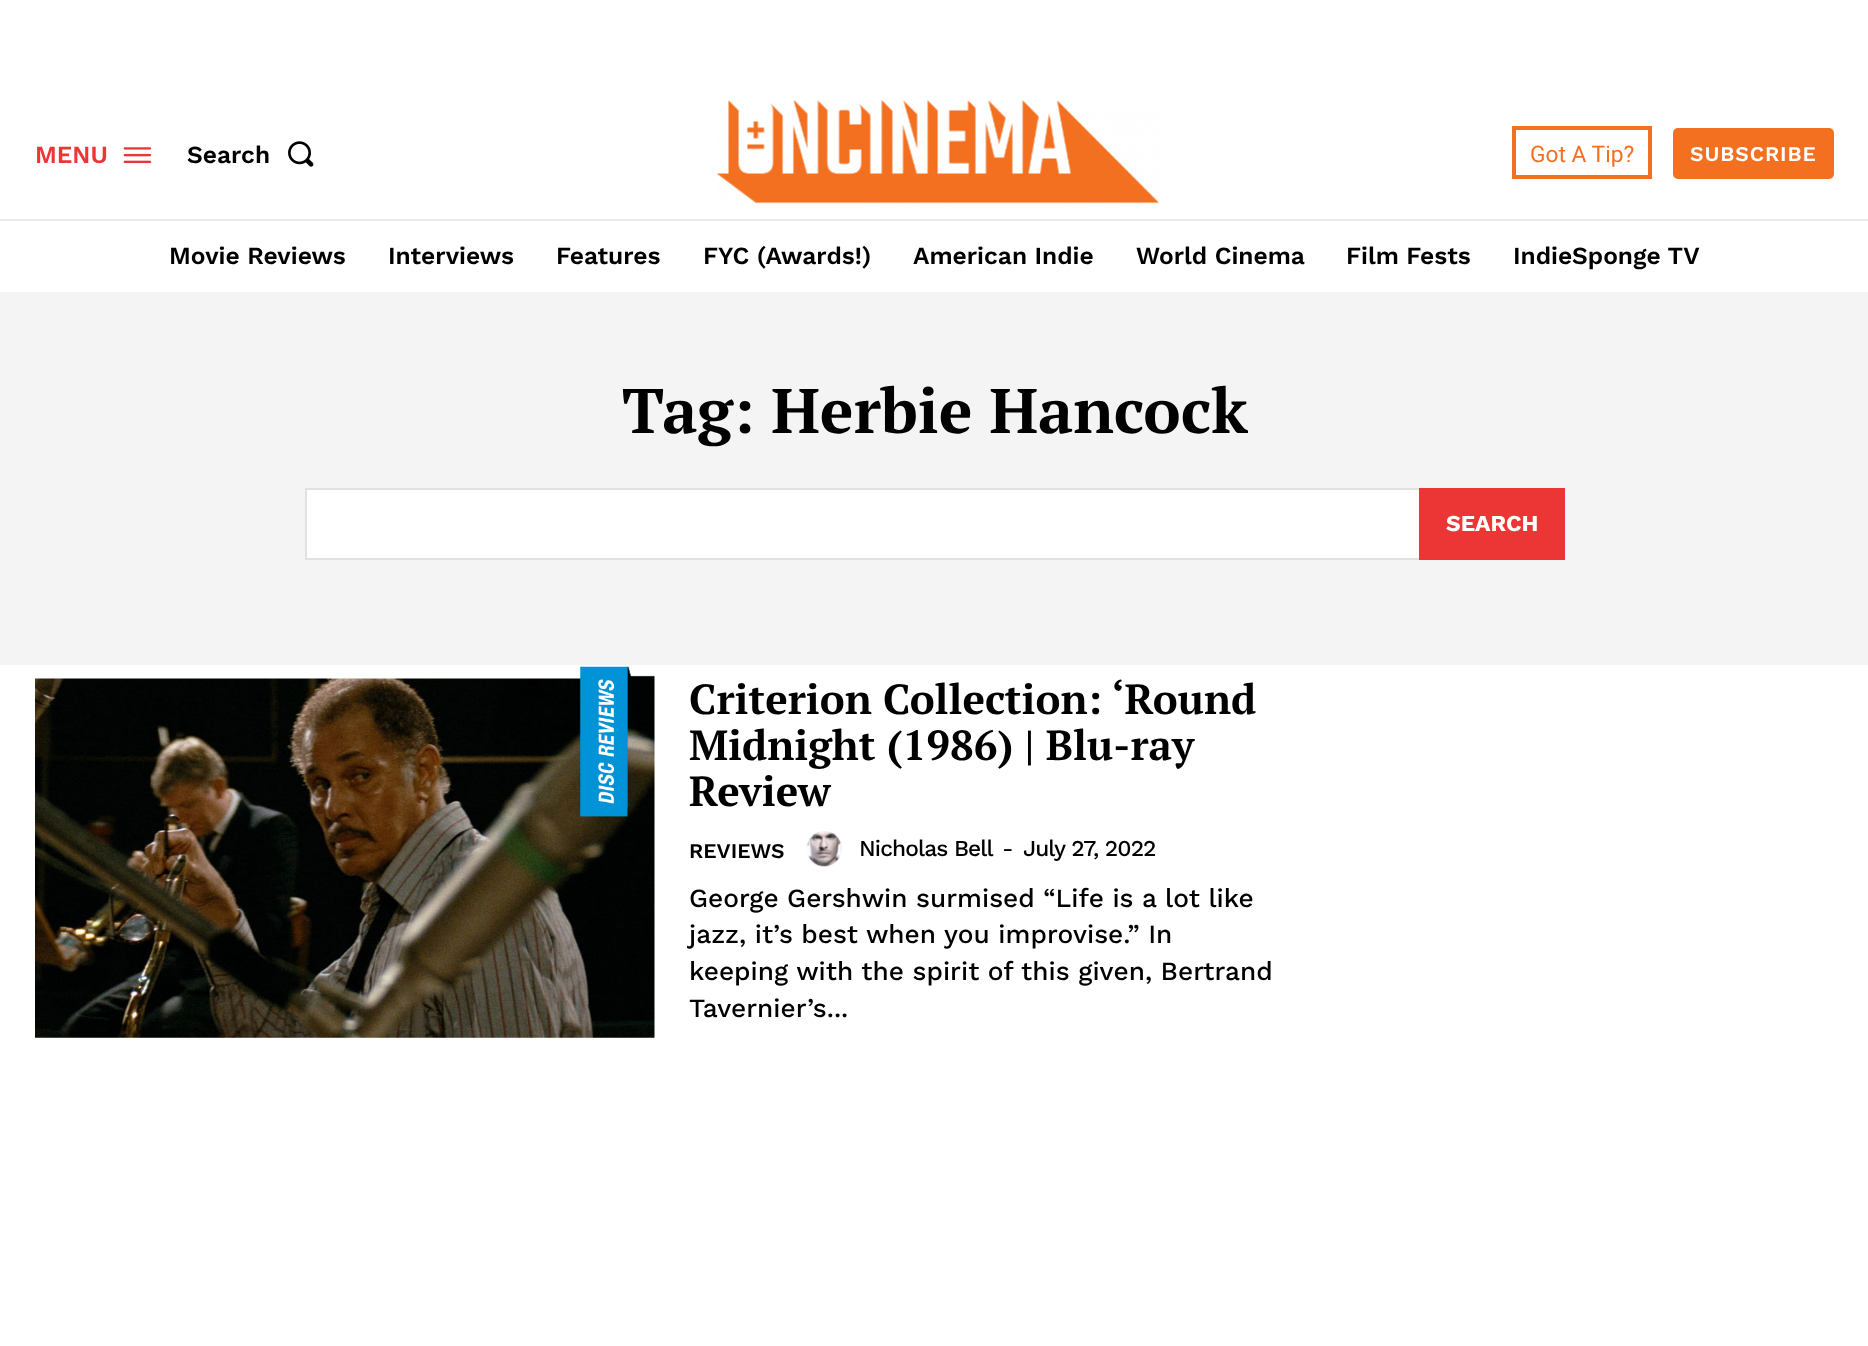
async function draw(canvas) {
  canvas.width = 1868;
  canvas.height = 1346;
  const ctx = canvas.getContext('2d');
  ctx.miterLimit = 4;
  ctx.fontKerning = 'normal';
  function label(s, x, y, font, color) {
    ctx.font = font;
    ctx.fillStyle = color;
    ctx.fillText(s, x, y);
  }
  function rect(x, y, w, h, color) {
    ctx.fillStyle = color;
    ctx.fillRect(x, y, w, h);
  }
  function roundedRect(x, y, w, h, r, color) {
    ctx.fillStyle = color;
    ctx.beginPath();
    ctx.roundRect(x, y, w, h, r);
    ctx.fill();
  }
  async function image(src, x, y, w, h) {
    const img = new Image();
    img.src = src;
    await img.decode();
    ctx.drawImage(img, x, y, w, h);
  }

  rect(0, 0, 1868, 1346, '#fff');
  label('MENU', 35, 163, '600 24.5px Work Sans', '#ec3535');
  await image('assets/img1.png', 123, 147, 29, 17);
  label('Search', 187, 163, '600 24.5px Work Sans', '#000');
  await image('assets/img2.png', 288, 141, 26, 26);
  await image('assets/img3.png', 716, 100, 443, 104);
  ctx.strokeStyle = '#f37020';
  ctx.lineWidth = 4;
  ctx.strokeRect(1514, 128, 136, 49);
  label('Got A Tip?', 1530, 162, '22.75px Roboto', '#f37020');
  roundedRect(1673, 128, 161, 51, 5, '#f37020');
  ctx.letterSpacing = '0.9px';
  label('SUBSCRIBE', 1690, 161, '600 21px Work Sans', '#fff');
  rect(0, 219, 1868, 2, '#eaeaea');
  ctx.letterSpacing = '0px';
  label('Movie Reviews', 169, 264, '600 24.5px Work Sans', '#000');
  label('Interviews', 388, 264, '600 24.5px Work Sans', '#000');
  label('Features', 556, 264, '600 24.5px Work Sans', '#000');
  label('FYC (Awards!)', 703, 264, '600 24.5px Work Sans', '#000');
  label('American Indie', 913, 264, '600 24.5px Work Sans', '#000');
  label('World Cinema', 1136, 264, '600 24.5px Work Sans', '#000');
  label('Film Fests', 1346, 264, '600 24.5px Work Sans', '#000');
  label('IndieSponge TV', 1513, 264, '600 24.5px Work Sans', '#000');
  rect(0, 292, 1868, 373, '#f4f4f4');
  label('Tag: Herbie Hancock', 622, 433, 'bold 63px PT Serif', '#000');
  rect(307, 490, 1112, 68, '#fff');
  ctx.strokeStyle = '#e1e1e1';
  ctx.lineWidth = 2;
  ctx.strokeRect(306, 489, 1258, 70);
  rect(1419, 488, 146, 72, '#ec3535');
  label('SEARCH', 1446, 531, 'bold 22.75px Work Sans', '#fff');
  await image('assets/img4.png', 35, 666, 620, 372);
  label('Criterion Collection: ‘Round', 689, 714, 'bold 42px PT Serif', '#000');
  label('Midnight (1986) | Blu-ray', 689, 760, 'bold 42px PT Serif', '#000');
  label('Review', 689, 806, 'bold 42px PT Serif', '#000');
  label('REVIEWS', 689, 858, '600 21px Work Sans', '#000');
  await image('assets/img5.png', 806, 831, 36, 36);
  ctx.letterSpacing = '-0.9px';
  label('Nicholas Bell', 859, 856, '500 22.75px Work Sans', '#000');
  label('-', 1002, 856, '22.75px Work Sans', '#000');
  label('July 27, 2022', 1023, 856, '500 22.75px Work Sans', '#000');
  ctx.letterSpacing = '0px';
  label('George Gershwin surmised “Life is a lot like', 689, 907, '500 26.25px Work Sans', '#000');
  label('jazz, it’s best when you improvise.” In', 689, 943, '500 26.25px Work Sans', '#000');
  label('keeping with the spirit of this given, Bertrand', 689, 980, '500 26.25px Work Sans', '#000');
  label('Tavernier’s...', 689, 1017, '500 26.25px Work Sans', '#000');
}

draw(document.querySelector('canvas'));
